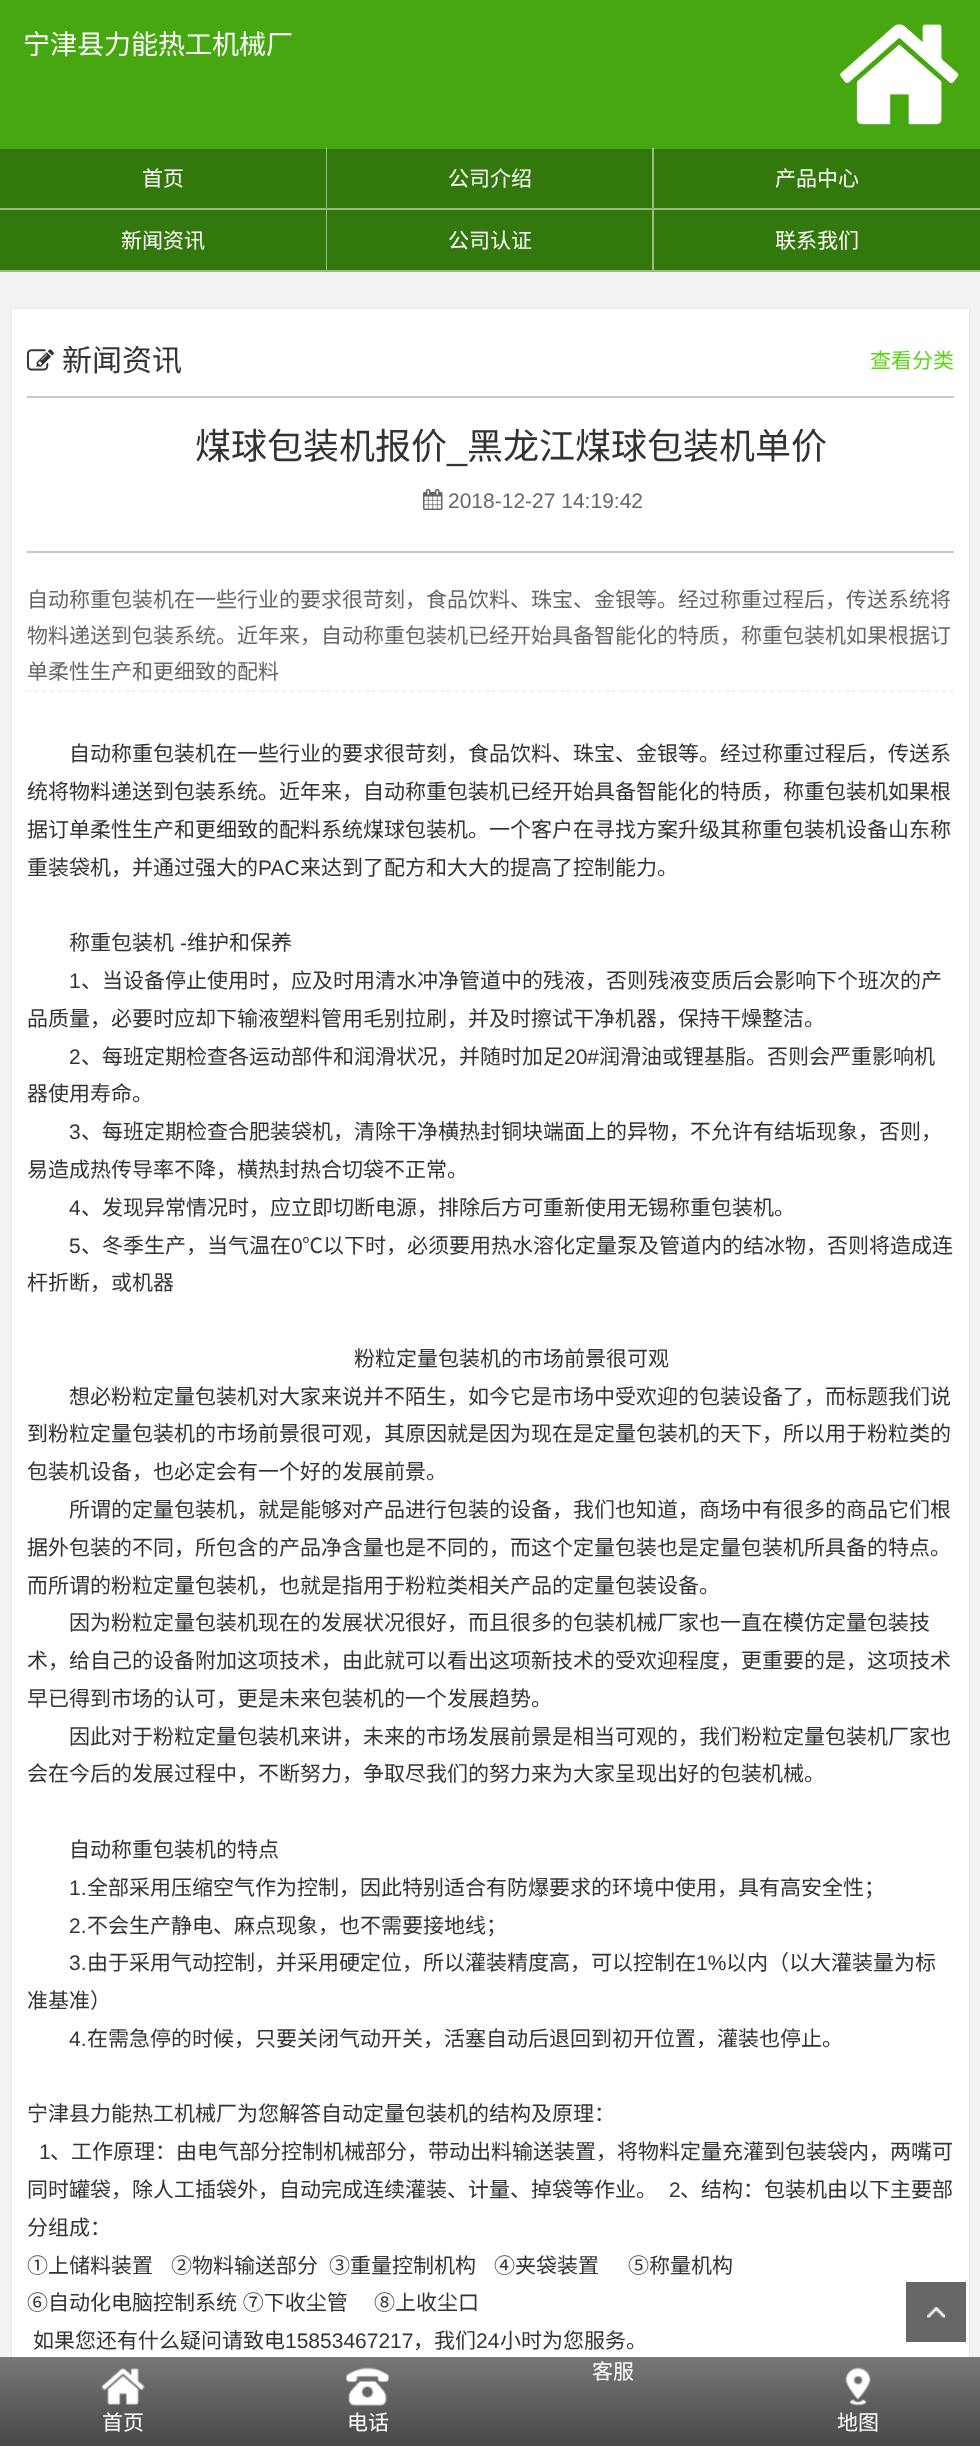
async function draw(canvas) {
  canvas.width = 980;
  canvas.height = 2446;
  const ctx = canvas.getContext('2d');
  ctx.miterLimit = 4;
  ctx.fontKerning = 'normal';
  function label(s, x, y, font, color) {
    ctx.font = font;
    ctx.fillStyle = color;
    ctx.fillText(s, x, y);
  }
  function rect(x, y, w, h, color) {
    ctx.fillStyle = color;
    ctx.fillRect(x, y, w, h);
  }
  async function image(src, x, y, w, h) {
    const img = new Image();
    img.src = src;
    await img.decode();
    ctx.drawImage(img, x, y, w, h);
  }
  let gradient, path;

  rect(0, 0, 980, 2446, '#f3f3f3');
  rect(0, 0, 980, 149, '#47a710');
  label('宁津县力能热工机械厂', 23, 54, '27px Noto Sans CJK SC', '#fff');
  await image('assets/img1.png', 840, 24, 119, 101);
  rect(0, 149, 654, 61, '#33780c');
  ctx.fillStyle = '#ffffff80';
  path = new Path2D('M327 148V210L326 208V148Z');
  ctx.fill(path);
  path = new Path2D('M327 210H0V208H326Z');
  ctx.fill(path);
  label('首页', 142, 186, '21px Noto Sans CJK SC', '#fff');
  ctx.fillStyle = '#ffffff80';
  path = new Path2D('M654 148V210L652 208V148Z');
  ctx.fill(path);
  path = new Path2D('M654 210H327V208H652Z');
  ctx.fill(path);
  label('公司介绍', 448, 186, '21px Noto Sans CJK SC', '#fff');
  rect(654, 149, 326, 59, '#33780c');
  ctx.fillStyle = '#99bc86';
  path = new Path2D('M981 210H654V208H980Z');
  ctx.fill(path);
  label('产品中心', 775, 186, '21px Noto Sans CJK SC', '#fff');
  rect(0, 210, 654, 62, '#33780c');
  ctx.fillStyle = '#99bc86';
  path = new Path2D('M327 210V272L326 270V210Z');
  ctx.fill(path);
  ctx.fillStyle = '#ffffff80';
  path = new Path2D('M327 272H0V270H326Z');
  ctx.fill(path);
  label('新闻资讯', 121, 248, '21px Noto Sans CJK SC', '#fff');
  ctx.fillStyle = '#99bc86';
  path = new Path2D('M654 210V272L652 270V210Z');
  ctx.fill(path);
  ctx.fillStyle = '#ffffff80';
  path = new Path2D('M654 272H327V270H652Z');
  ctx.fill(path);
  label('公司认证', 448, 248, '21px Noto Sans CJK SC', '#fff');
  rect(654, 210, 326, 60, '#33780c');
  ctx.fillStyle = '#99bc86';
  path = new Path2D('M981 272H654V270H980Z');
  ctx.fill(path);
  label('联系我们', 775, 248, '21px Noto Sans CJK SC', '#fff');
  ctx.fillStyle = '#0000001a';
  ctx.filter = 'blur(1px)';
  ctx.beginPath();
  ctx.rect(12, 309, 957, 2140);
  ctx.fill();
  ctx.filter = 'none';
  rect(12, 309, 957, 2048, '#fff');
  await image('assets/img2.png', 27, 349, 27, 22);
  label('新闻资讯', 62, 371, '30px Noto Sans CJK SC', '#333');
  label('查看分类', 870, 368, '21px Noto Sans CJK SC', '#5bd614');
  rect(27, 396, 927, 2, '#cbcbcb');
  rect(27, 551, 927, 2, '#cbcbcb');
  label('煤球包装机报价', 195, 459, '36px Noto Sans CJK SC', '#333');
  label('黑龙江煤球包装机单价', 467, 459, '36px Noto Sans CJK SC', '#333');
  label('_', 447, 459, '36px Liberation Sans', '#333');
  await image('assets/img3.png', 423, 489, 20, 21);
  label('2018-12-27 14:19:42', 448, 508, '21px Liberation Sans', '#666');
  path = new Path2D('M27 691H954');
  ctx.strokeStyle = '#eee';
  ctx.lineWidth = 1.5;
  ctx.setLineDash([4.5, 3]);
  ctx.stroke(path);
  label('自动称重包装机在一些行业的要求很苛刻，食品饮料、珠宝、金银等。经过称重过程后，传送系统将', 27, 607, '21px Noto Sans CJK SC', '#666');
  label('物料递送到包装系统。近年来，自动称重包装机已经开始具备智能化的特质，称重包装机如果根据订', 27, 643, '21px Noto Sans CJK SC', '#666');
  label('单柔性生产和更细致的配料', 27, 679, '21px Noto Sans CJK SC', '#666');
  label('自动称重包装机在一些行业的要求很苛刻，食品饮料、珠宝、金银等。经过称重过程后，传送系', 69, 761, '21px Noto Sans CJK SC', '#333');
  label('统将物料递送到包装系统。近年来，自动称重包装机已经开始具备智能化的特质，称重包装机如果根', 27, 799, '21px Noto Sans CJK SC', '#333');
  label('据订单柔性生产和更细致的配料系统煤球包装机。一个客户在寻找方案升级其称重包装机设备山东称', 27, 837, '21px Noto Sans CJK SC', '#333');
  label('重装袋机，并通过强大的', 27, 875, '21px Noto Sans CJK SC', '#333');
  label('PAC', 258, 875, '21px Liberation Sans', '#333');
  label('来达到了配方和大大的提高了控制能力。', 300, 875, '21px Noto Sans CJK SC', '#333');
  label('称重包装机', 69, 950, '21px Noto Sans CJK SC', '#333');
  label('-', 180, 950, '21px Liberation Sans', '#333');
  label('维护和保养', 187, 950, '21px Noto Sans CJK SC', '#333');
  label('1', 69, 988, '21px Liberation Sans', '#333');
  label('、当设备停止使用时，应及时用清水冲净管道中的残液，否则残液变质后会影响下个班次的产', 81, 988, '21px Noto Sans CJK SC', '#333');
  label('品质量，必要时应却下输液塑料管用毛别拉刷，并及时擦试干净机器，保持干燥整洁。', 27, 1026, '21px Noto Sans CJK SC', '#333');
  label('2', 69, 1064, '21px Liberation Sans', '#333');
  label('、每班定期检查各运动部件和润滑状况，并随时加足', 81, 1064, '21px Noto Sans CJK SC', '#333');
  label('20#', 564, 1064, '21px Liberation Sans', '#333');
  label('润滑油或锂基脂。否则会严重影响机', 599, 1064, '21px Noto Sans CJK SC', '#333');
  label('器使用寿命。', 27, 1101, '21px Noto Sans CJK SC', '#333');
  label('3', 69, 1139, '21px Liberation Sans', '#333');
  label('、每班定期检查合肥装袋机，清除干净横热封铜块端面上的异物，不允许有结垢现象，否则，', 81, 1139, '21px Noto Sans CJK SC', '#333');
  label('易造成热传导率不降，横热封热合切袋不正常。', 27, 1177, '21px Noto Sans CJK SC', '#333');
  label('4', 69, 1215, '21px Liberation Sans', '#333');
  label('、发现异常情况时，应立即切断电源，排除后方可重新使用无锡称重包装机。', 81, 1215, '21px Noto Sans CJK SC', '#333');
  label('5', 69, 1253, '21px Liberation Sans', '#333');
  label('、冬季生产，当气温在', 81, 1253, '21px Noto Sans CJK SC', '#333');
  label('0', 291, 1253, '21px Liberation Sans', '#333');
  label('℃以下时，必须要用热水溶化定量泵及管道内的结冰物，否则将造成连', 302, 1253, '21px Noto Sans CJK SC', '#333');
  label('杆折断，或机器', 27, 1290, '21px Noto Sans CJK SC', '#333');
  label('粉粒定量包装机的市场前景很可观', 354, 1366, '21px Noto Sans CJK SC', '#333');
  label('想必粉粒定量包装机对大家来说并不陌生，如今它是市场中受欢迎的包装设备了，而标题我们说', 69, 1404, '21px Noto Sans CJK SC', '#333');
  label('到粉粒定量包装机的市场前景很可观，其原因就是因为现在是定量包装机的天下，所以用于粉粒类的', 27, 1441, '21px Noto Sans CJK SC', '#333');
  label('包装机设备，也必定会有一个好的发展前景。', 27, 1479, '21px Noto Sans CJK SC', '#333');
  label('所谓的定量包装机，就是能够对产品进行包装的设备，我们也知道，商场中有很多的商品它们根', 69, 1517, '21px Noto Sans CJK SC', '#333');
  label('据外包装的不同，所包含的产品净含量也是不同的，而这个定量包装也是定量包装机所具备的特点。', 27, 1555, '21px Noto Sans CJK SC', '#333');
  label('而所谓的粉粒定量包装机，也就是指用于粉粒类相关产品的定量包装设备。', 27, 1593, '21px Noto Sans CJK SC', '#333');
  label('因为粉粒定量包装机现在的发展状况很好，而且很多的包装机械厂家也一直在模仿定量包装技', 69, 1630, '21px Noto Sans CJK SC', '#333');
  label('术，给自己的设备附加这项技术，由此就可以看出这项新技术的受欢迎程度，更重要的是，这项技术', 27, 1668, '21px Noto Sans CJK SC', '#333');
  label('早已得到市场的认可，更是未来包装机的一个发展趋势。', 27, 1706, '21px Noto Sans CJK SC', '#333');
  label('因此对于粉粒定量包装机来讲，未来的市场发展前景是相当可观的，我们粉粒定量包装机厂家也', 69, 1744, '21px Noto Sans CJK SC', '#333');
  label('会在今后的发展过程中，不断努力，争取尽我们的努力来为大家呈现出好的包装机械。', 27, 1781, '21px Noto Sans CJK SC', '#333');
  label('自动称重包装机的特点', 69, 1857, '21px Noto Sans CJK SC', '#333');
  label('1.', 69, 1895, '21px Liberation Sans', '#333');
  label('全部采用压缩空气作为控制，因此特别适合有防爆要求的环境中使用，具有高安全性；', 87, 1895, '21px Noto Sans CJK SC', '#333');
  label('2.', 69, 1933, '21px Liberation Sans', '#333');
  label('不会生产静电、麻点现象，也不需要接地线；', 87, 1933, '21px Noto Sans CJK SC', '#333');
  label('3.', 69, 1970, '21px Liberation Sans', '#333');
  label('由于采用气动控制，并采用硬定位，所以灌装精度高，可以控制在', 87, 1970, '21px Noto Sans CJK SC', '#333');
  label('1%', 696, 1970, '21px Liberation Sans', '#333');
  label('以内（以大灌装量为标', 726, 1970, '21px Noto Sans CJK SC', '#333');
  label('准基准）', 27, 2008, '21px Noto Sans CJK SC', '#333');
  label('4.', 69, 2046, '21px Liberation Sans', '#333');
  label('在需急停的时候，只要关闭气动开关，活塞自动后退回到初开位置，灌装也停止。', 87, 2046, '21px Noto Sans CJK SC', '#333');
  label('宁津县力能热工机械厂为您解答自动定量包装机的结构及原理：', 27, 2121, '21px Noto Sans CJK SC', '#333');
  label('1', 39, 2159, '21px Liberation Sans', '#333');
  label('、工作原理：由电气部分控制机械部分，带动出料输送装置，将物料定量充灌到包装袋内，两嘴可', 50, 2159, '21px Noto Sans CJK SC', '#333');
  label('同时罐袋，除人工插袋外，自动完成连续灌装、计量、掉袋等作业。', 27, 2197, '21px Noto Sans CJK SC', '#333');
  label('2', 669, 2197, '21px Liberation Sans', '#333');
  label('、结构：包装机由以下主要部', 680, 2197, '21px Noto Sans CJK SC', '#333');
  label('分组成：', 27, 2235, '21px Noto Sans CJK SC', '#333');
  label('①上储料装置', 27, 2273, '21px Noto Sans CJK SC', '#333');
  label('②物料输送部分', 171, 2273, '21px Noto Sans CJK SC', '#333');
  label('③重量控制机构', 329, 2273, '21px Noto Sans CJK SC', '#333');
  label('④夹袋装置', 494, 2273, '21px Noto Sans CJK SC', '#333');
  label('⑤称量机构', 628, 2273, '21px Noto Sans CJK SC', '#333');
  ctx.wordSpacing = '1px';
  label('⑥自动化电脑控制系统 ⑦下收尘管', 27, 2310, '21px Noto Sans CJK SC', '#333');
  ctx.wordSpacing = '0px';
  label('⑧上收尘口', 374, 2310, '21px Noto Sans CJK SC', '#333');
  label('如果您还有什么疑问请致电', 33, 2348, '21px Noto Sans CJK SC', '#333');
  label('15853467217', 285, 2348, '21px Liberation Sans', '#333');
  label('，我们', 413, 2348, '21px Noto Sans CJK SC', '#333');
  label('24', 476, 2348, '21px Liberation Sans', '#333');
  label('小时为您服务。', 500, 2348, '21px Noto Sans CJK SC', '#333');
  rect(906, 2282, 60, 60, '#666');
  await image('assets/img4.png', 927, 2307, 18, 11);
  gradient = ctx.createLinearGradient(491, 2357, 491, 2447);
  gradient.addColorStop(0, '#787878');
  gradient.addColorStop(1, '#464646');
  ctx.fillStyle = gradient;
  ctx.fillRect(0, 2357, 980, 89);
  label('客服', 592, 2379, '21px Noto Sans CJK SC', '#fff');
  await image('assets/img5.png', 101, 2368, 44, 37);
  label('首页', 102, 2430, '21px Noto Sans CJK SC', '#fff');
  await image('assets/img6.png', 346, 2367, 43, 40);
  label('电话', 347, 2430, '21px Noto Sans CJK SC', '#fff');
  await image('assets/img7.png', 845, 2367, 26, 39);
  label('地图', 837, 2430, '21px Noto Sans CJK SC', '#fff');
}

draw(document.querySelector('canvas'));
